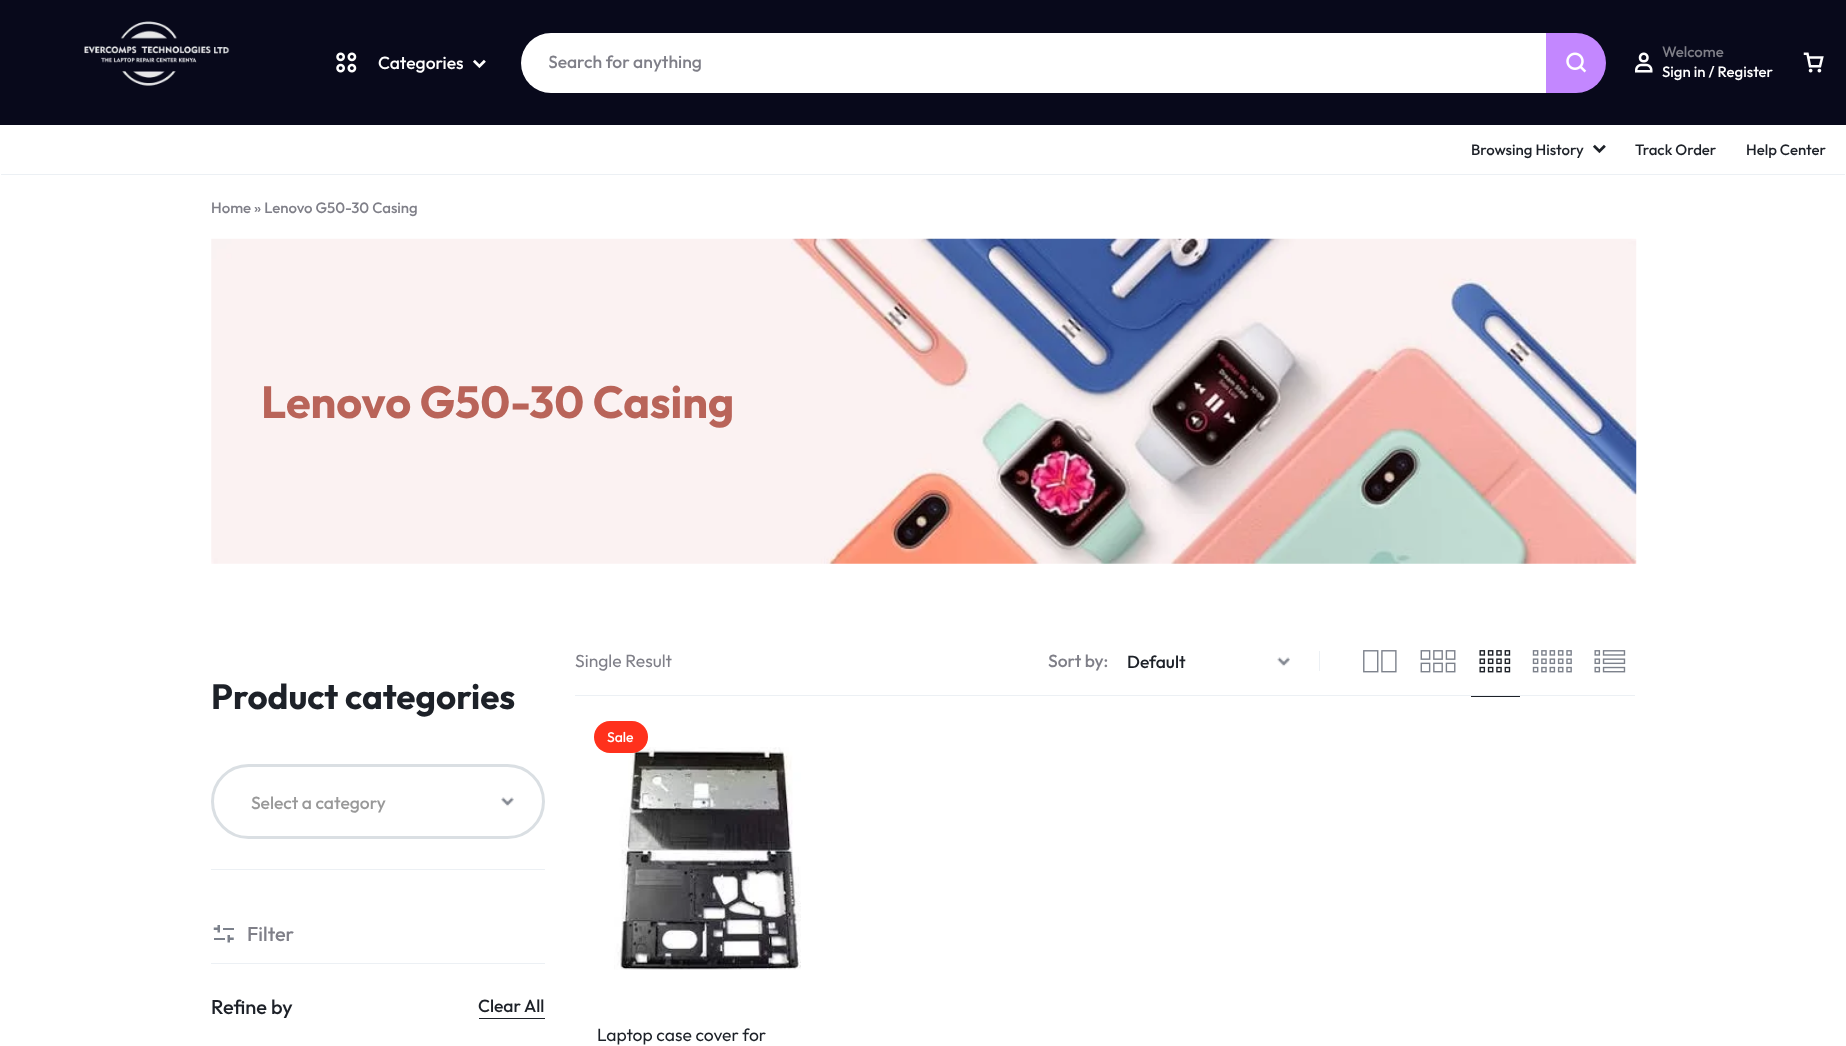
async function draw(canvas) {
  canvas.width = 1846;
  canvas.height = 1046;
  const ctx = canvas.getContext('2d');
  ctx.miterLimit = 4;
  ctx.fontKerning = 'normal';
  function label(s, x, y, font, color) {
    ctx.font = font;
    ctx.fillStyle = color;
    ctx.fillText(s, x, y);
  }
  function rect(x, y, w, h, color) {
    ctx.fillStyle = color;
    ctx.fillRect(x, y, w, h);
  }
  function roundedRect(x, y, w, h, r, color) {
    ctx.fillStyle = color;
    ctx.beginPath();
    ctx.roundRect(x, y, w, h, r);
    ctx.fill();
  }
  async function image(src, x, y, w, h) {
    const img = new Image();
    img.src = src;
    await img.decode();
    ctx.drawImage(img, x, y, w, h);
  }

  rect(0, 0, 1846, 1046, '#fff');
  rect(0, 0, 1846, 125, '#08091b');
  await image('assets/img1.png', 84, 21, 146, 65);
  await image('assets/img2.png', 336, 52, 21, 21);
  label('Categories', 378, 69, '500 17.5px Outfit', '#fff');
  await image('assets/img3.png', 473, 59, 13, 10);
  ctx.beginPath();
  ctx.roundRect(521, 33, 1025, 60, [30, 0, 0, 30]);
  ctx.fill();
  ctx.save();
  ctx.beginPath();
  ctx.roundRect(549, 33, 945, 60, 30);
  ctx.clip();
  label('Search for anything', 548, 68, '500 17.5px Outfit', '#7f7f88');
  ctx.restore();
  ctx.fillStyle = '#c387ff';
  ctx.beginPath();
  ctx.roundRect(1546, 33, 60, 60, [0, 30, 30, 0]);
  ctx.fill();
  await image('assets/img4.png', 1566, 52, 21, 21);
  await image('assets/img5.png', 1635, 52, 18, 21);
  label('Welcome', 1662, 57, '500 15px Outfit', '#7f7f88');
  label('Sign in / Register', 1662, 77, '500 15px Outfit', '#fff');
  await image('assets/img6.png', 1803, 52, 21, 21);
  label('Browsing History', 1471, 155, '500 15px Outfit', '#1d2128');
  await image('assets/img7.png', 1593, 144, 13, 10);
  label('Track Order', 1635, 155, '500 15px Outfit', '#1d2128');
  label('Help Center', 1746, 155, '500 15px Outfit', '#1d2128');
  rect(1, 174, 1844, 1, '#ecf0f4');
  label('Home » Lenovo G50-30 Casing', 211, 213, '500 15px Outfit', '#7f7f88');
  await image('assets/img8.png', 211, 238, 1426, 326);
  label('Lenovo G50-30 Casing', 261, 418, 'bold 45px Outfit', '#b96459');
  rect(211, 869, 334, 1, '#ecf0f4');
  label('Product categories', 211, 709, 'bold 35px Outfit', '#1d2128');
  ctx.beginPath();
  ctx.roundRect(212.5, 765.5, 331, 72, 36);
  ctx.strokeStyle = '#dadfe3';
  ctx.lineWidth = 3;
  ctx.stroke();
  label('Select a category', 251, 809, '500 17.5px Outfit', '#999');
  await image('assets/img9.png', 501, 797, 13, 10);
  rect(211, 963, 334, 1, '#ecf0f4');
  await image('assets/img10.png', 213, 925, 21, 18);
  label('Filter', 247, 941, '500 20px Outfit', '#7f7f88');
  label('Refine by', 211, 1014, '500 20px Outfit', '#1d2128');
  rect(479, 1018, 66, 1, '#1d2128');
  label('Clear All', 478, 1012, '500 17.5px Outfit', '#1d2128');
  rect(575, 695, 1060, 1, '#ecf0f4');
  label('Single Result', 575, 667, '17.5px Outfit', '#7f7f88');
  label('Sort by:', 1048, 667, '500 17.5px Outfit', '#7f7f88');
  await image('assets/img11.png', 1277, 657, 13, 10);
  label('Default', 1127, 668, '500 17.5px Outfit', '#1d2128');
  rect(1319, 651, 1, 20, '#ecf0f4');
  await image('assets/img12.png', 1363, 650, 34, 23);
  await image('assets/img13.png', 1420, 650, 36, 23);
  await image('assets/img14.png', 1479, 650, 32, 23);
  rect(1471, 696, 49, 1, '#1d2128');
  await image('assets/img15.png', 1532, 650, 40, 23);
  await image('assets/img16.png', 1594, 650, 32, 23);
  await image('assets/img17.png', 614, 747, 187, 223);
  roundedRect(594, 721, 54, 32, 16, '#ff311c');
  label('Sale', 607, 742, '500 14px Outfit', '#fff');
  label('Laptop case cover for', 597, 1041, '17.5px Outfit', '#1d2128');
}

draw(document.querySelector('canvas'));
